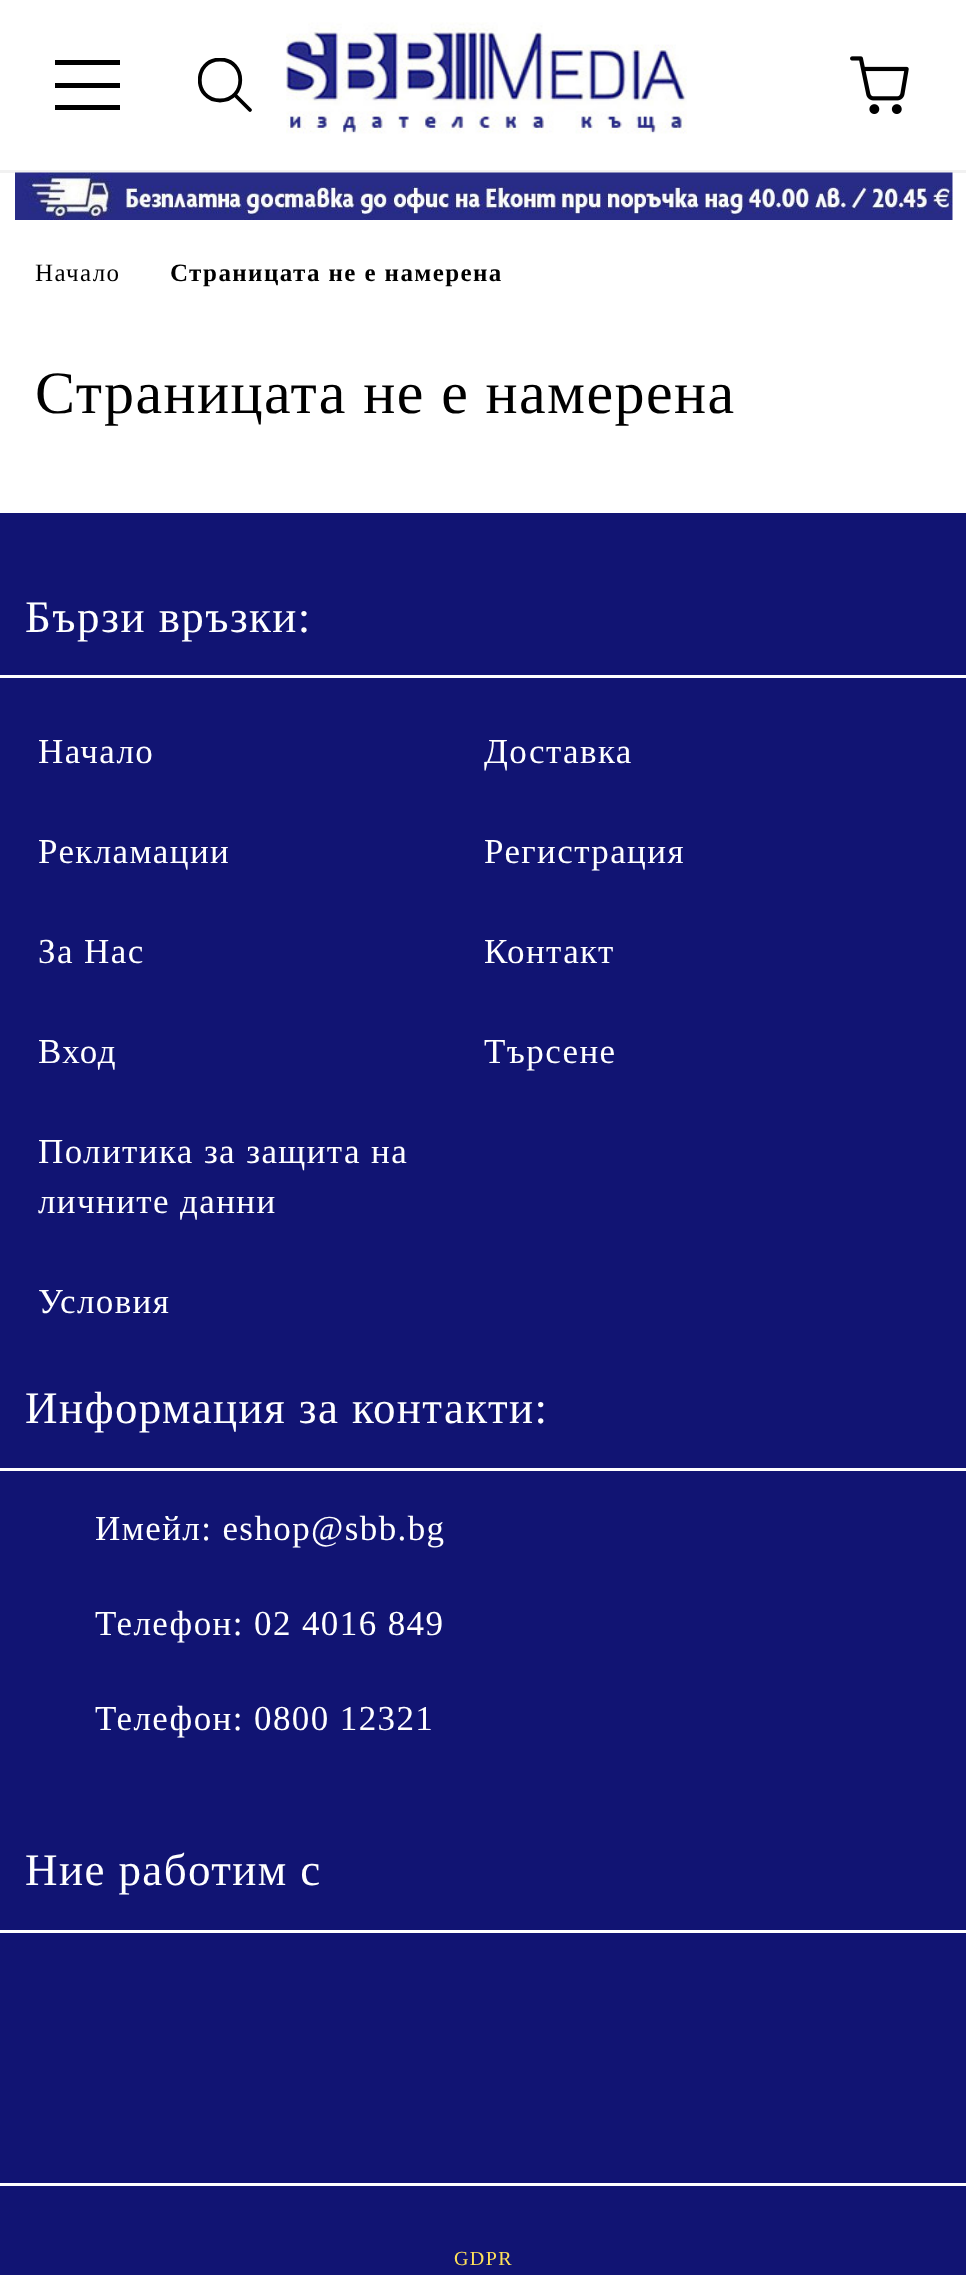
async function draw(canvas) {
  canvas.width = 966;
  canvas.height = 2275;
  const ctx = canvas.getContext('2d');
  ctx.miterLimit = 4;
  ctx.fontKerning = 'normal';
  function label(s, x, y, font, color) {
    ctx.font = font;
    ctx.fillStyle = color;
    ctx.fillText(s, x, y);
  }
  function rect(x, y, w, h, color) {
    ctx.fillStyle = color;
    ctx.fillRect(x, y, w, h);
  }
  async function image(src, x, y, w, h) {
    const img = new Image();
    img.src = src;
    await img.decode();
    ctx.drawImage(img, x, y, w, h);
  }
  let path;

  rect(0, 0, 966, 2275, '#fff');
  rect(0, 170, 966, 3, '#f1f1f1');
  rect(55, 60, 65, 5, '#000');
  rect(55, 83, 65, 5, '#000');
  rect(55, 105, 65, 5, '#000');
  ctx.save();
  ctx.beginPath();
  ctx.rect(198, 58, 55, 55);
  ctx.clip();
  path = new Path2D('M220 59.5C193 59.5 193 100.5 220 100.5C247 100.5 247 59.5 220 59.5Z');
  ctx.strokeStyle = '#000';
  ctx.lineWidth = 3.8;
  ctx.stroke(path);
  ctx.restore();
  path = new Path2D('M235.5 95.5L250 110');
  ctx.strokeStyle = '#000';
  ctx.lineWidth = 3.8;
  ctx.lineCap = 'round';
  ctx.stroke(path);
  await image('assets/img1.png', 286, 22, 401, 112);
  await image('assets/img2.png', 850, 56, 59, 58);
  await image('assets/img3.png', 15, 172, 938, 48);
  ctx.letterSpacing = '1.4px';
  label('Начало', 35, 281, '25px Liberation Serif', '#000');
  label('Страницата не е намерена', 170, 281, 'bold 25px Liberation Serif', '#000');
  label('Страницата не е намерена', 35, 413, '60px Liberation Serif', '#000');
  rect(0, 513, 966, 1762, '#111473');
  rect(0, 675, 966, 3, '#fff');
  label('Бързи връзки:', 25, 632, '45px Liberation Serif', '#fff');
  label('Начало', 38, 763, '35px Liberation Serif', '#fff');
  label('Рекламации', 38, 863, '35px Liberation Serif', '#fff');
  label('За Нас', 38, 963, '35px Liberation Serif', '#fff');
  label('Вход', 38, 1063, '35px Liberation Serif', '#fff');
  label('Доставка', 484, 763, '35px Liberation Serif', '#fff');
  label('Регистрация', 484, 863, '35px Liberation Serif', '#fff');
  label('Контакт', 484, 963, '35px Liberation Serif', '#fff');
  label('Търсене', 484, 1063, '35px Liberation Serif', '#fff');
  label('Политика за защита на', 38, 1163, '35px Liberation Serif', '#fff');
  label('личните данни', 38, 1213, '35px Liberation Serif', '#fff');
  label('Условия', 38, 1313, '35px Liberation Serif', '#fff');
  rect(0, 1468, 966, 3, '#fff');
  label('Информация за контакти:', 25, 1423, '45px Liberation Serif', '#fff');
  label('Имейл: eshop@sbb.bg', 95, 1540, '35px Liberation Serif', '#fff');
  label('Телефон: 02 4016 849', 95, 1635, '35px Liberation Serif', '#fff');
  label('Телефон: 0800 12321', 95, 1730, '35px Liberation Serif', '#fff');
  rect(0, 1930, 966, 3, '#fff');
  label('Ние работим с', 25, 1885, '45px Liberation Serif', '#fff');
  rect(0, 2183, 966, 3, '#fff');
  label('GDPR', 454, 2265, '20px Liberation Serif', '#ffe15a');
}

draw(document.querySelector('canvas'));
